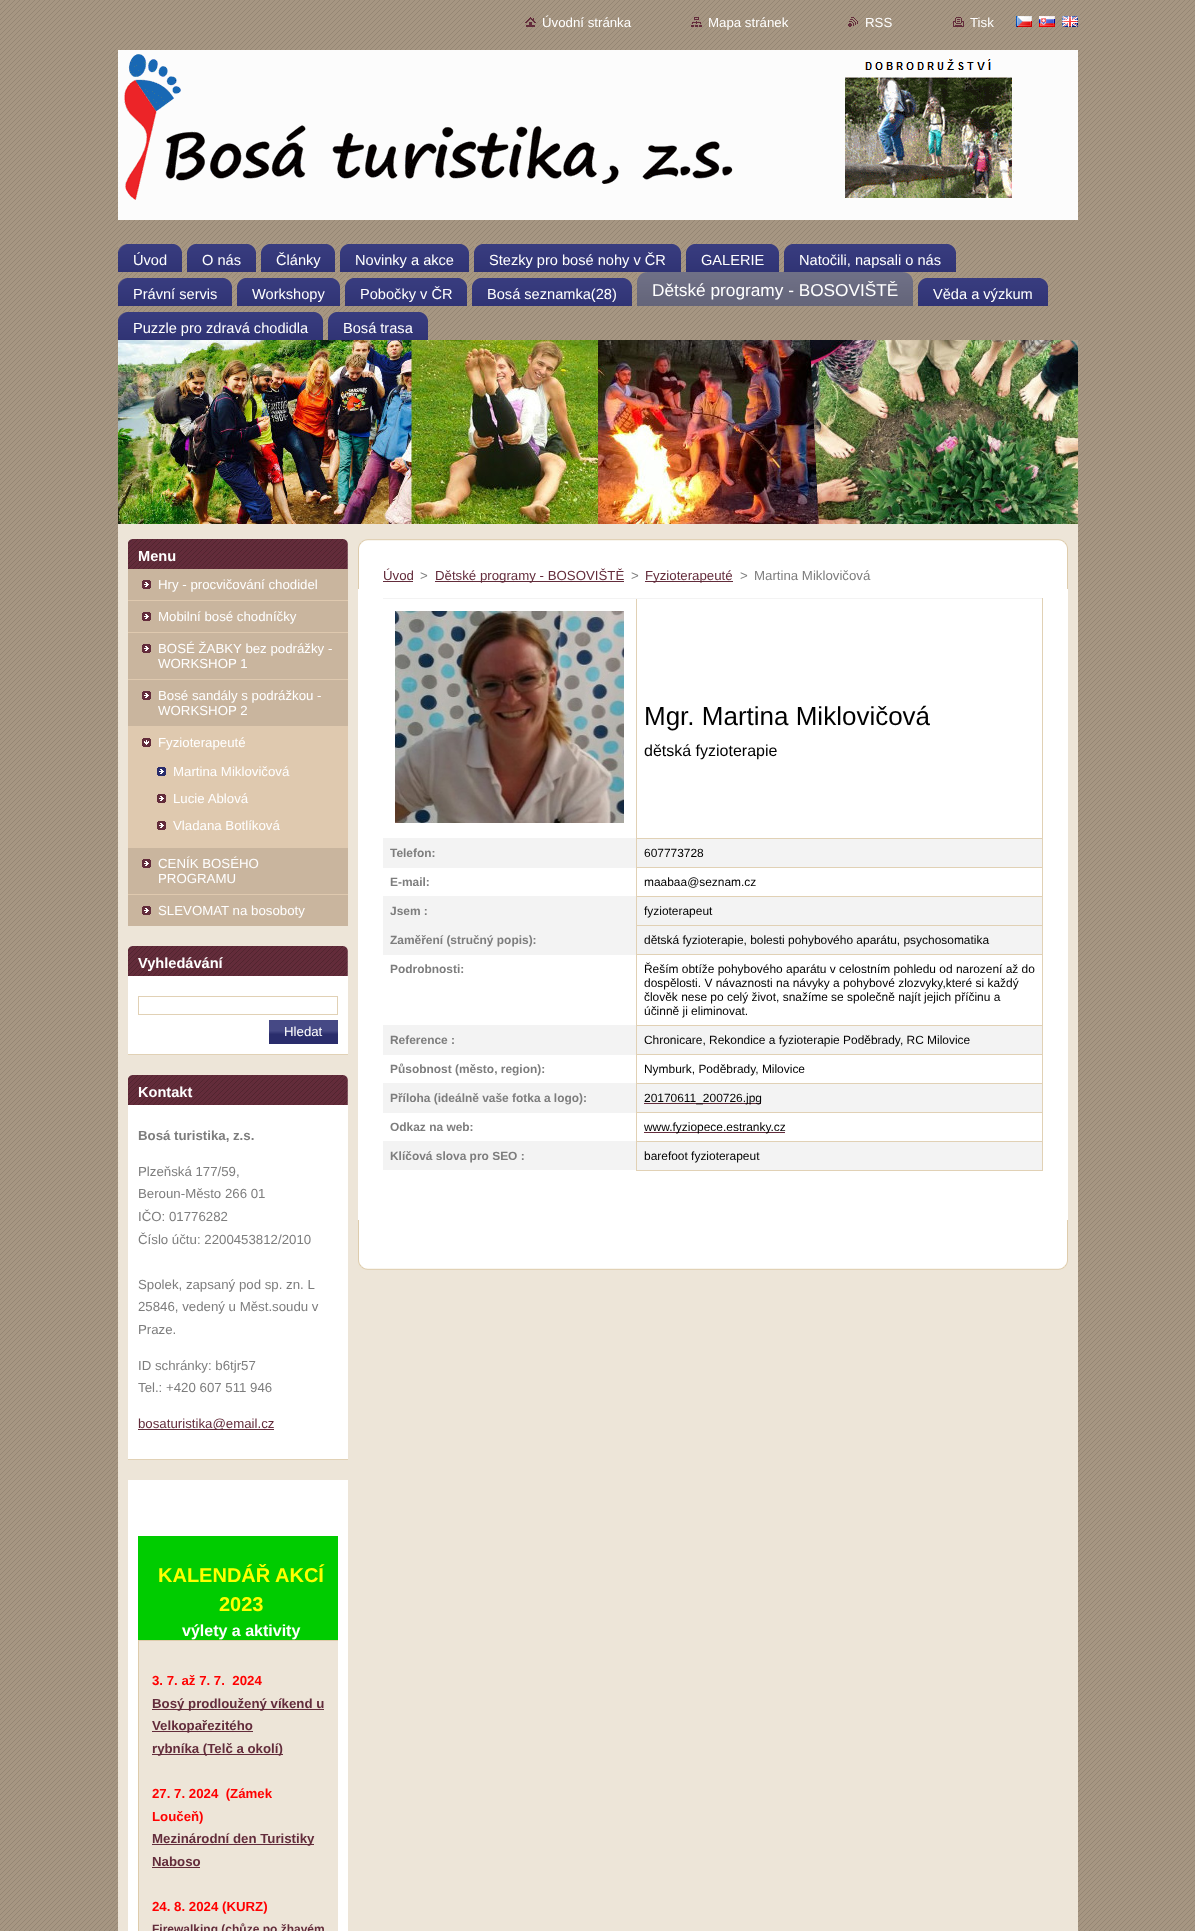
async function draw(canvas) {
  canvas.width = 1195;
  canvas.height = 1931;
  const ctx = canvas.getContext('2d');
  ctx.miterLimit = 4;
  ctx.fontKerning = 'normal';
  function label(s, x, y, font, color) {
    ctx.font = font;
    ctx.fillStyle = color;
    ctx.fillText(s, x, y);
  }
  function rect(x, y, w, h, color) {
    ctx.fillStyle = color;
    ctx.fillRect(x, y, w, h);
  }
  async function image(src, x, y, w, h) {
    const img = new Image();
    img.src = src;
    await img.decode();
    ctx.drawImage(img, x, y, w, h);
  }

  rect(0, 0, 1195, 1931, '#fff');
  await image('assets/img1.png', 0, 0, 1195, 1931);
  await image('assets/img2.png', 525, 17, 11, 10);
  label('Úvodní stránka', 542, 27, '13.25px Liberation Sans', '#fff');
  await image('assets/img3.png', 691, 17, 11, 10);
  label('Mapa stránek', 708, 27, '13.25px Liberation Sans', '#fff');
  await image('assets/img4.png', 848, 17, 10, 10);
  label('RSS', 865, 27, '13.25px Liberation Sans', '#fff');
  await image('assets/img5.png', 953, 17, 11, 10);
  label('Tisk', 970, 27, '13.25px Liberation Sans', '#fff');
  await image('assets/img6.png', 1016, 16, 16, 11);
  await image('assets/img7.png', 1039, 16, 16, 11);
  await image('assets/img8.png', 1062, 16, 16, 11);
  await image('assets/img9.png', 118, 50, 960, 170);
  await image('assets/img10.png', 118, 244, 64, 28);
  await image('assets/img11.png', 118, 244, 9, 8);
  await image('assets/img12.png', 174, 244, 8, 8);
  label('Úvod', 133, 265, '14.6px Liberation Sans', '#fff');
  await image('assets/img13.png', 187, 244, 69, 28);
  await image('assets/img14.png', 187, 244, 8, 8);
  await image('assets/img12.png', 248, 244, 8, 8);
  label('O nás', 202, 265, '14.6px Liberation Sans', '#fff');
  await image('assets/img15.png', 261, 244, 74, 28);
  await image('assets/img14.png', 261, 244, 8, 8);
  await image('assets/img12.png', 327, 244, 8, 8);
  label('Články', 276, 265, '14.6px Liberation Sans', '#fff');
  await image('assets/img16.png', 340, 244, 129, 28);
  await image('assets/img14.png', 340, 244, 8, 8);
  await image('assets/img12.png', 461, 244, 8, 8);
  label('Novinky a akce', 355, 265, '14.6px Liberation Sans', '#fff');
  await image('assets/img17.png', 474, 244, 207, 28);
  await image('assets/img14.png', 474, 244, 8, 8);
  await image('assets/img12.png', 673, 244, 8, 8);
  label('Stezky pro bosé nohy v ČR', 489, 265, '14.6px Liberation Sans', '#fff');
  await image('assets/img18.png', 686, 244, 93, 28);
  await image('assets/img14.png', 686, 244, 8, 8);
  await image('assets/img12.png', 771, 244, 8, 8);
  label('GALERIE', 701, 265, '14.6px Liberation Sans', '#fff');
  await image('assets/img19.png', 784, 244, 172, 28);
  await image('assets/img14.png', 784, 244, 8, 8);
  await image('assets/img12.png', 948, 244, 8, 8);
  label('Natočili, napsali o nás', 799, 265, '14.6px Liberation Sans', '#fff');
  await image('assets/img20.png', 118, 278, 114, 28);
  await image('assets/img11.png', 118, 278, 9, 8);
  await image('assets/img12.png', 224, 278, 8, 8);
  label('Právní servis', 133, 299, '14.6px Liberation Sans', '#fff');
  await image('assets/img21.png', 237, 278, 103, 28);
  await image('assets/img14.png', 237, 278, 8, 8);
  await image('assets/img12.png', 332, 278, 8, 8);
  label('Workshopy', 252, 299, '14.6px Liberation Sans', '#fff');
  await image('assets/img22.png', 345, 278, 122, 28);
  await image('assets/img14.png', 345, 278, 8, 8);
  await image('assets/img12.png', 459, 278, 8, 8);
  label('Pobočky v ČR', 360, 299, '14.6px Liberation Sans', '#fff');
  await image('assets/img23.png', 472, 278, 160, 28);
  await image('assets/img14.png', 472, 278, 8, 8);
  await image('assets/img12.png', 624, 278, 8, 8);
  label('Bosá seznamka(28)', 487, 299, '14.6px Liberation Sans', '#fff');
  await image('assets/img24.png', 637, 272, 276, 34);
  await image('assets/img25.png', 637, 272, 10, 9);
  await image('assets/img26.png', 903, 272, 10, 9);
  label('Dětské programy - BOSOVIŠTĚ', 652, 296, '17.25px Liberation Sans', '#fff');
  await image('assets/img27.png', 918, 278, 130, 28);
  await image('assets/img14.png', 918, 278, 8, 8);
  await image('assets/img12.png', 1040, 278, 8, 8);
  label('Věda a výzkum', 933, 299, '14.6px Liberation Sans', '#fff');
  await image('assets/img28.png', 118, 312, 205, 28);
  await image('assets/img11.png', 118, 312, 9, 8);
  await image('assets/img12.png', 315, 312, 8, 8);
  label('Puzzle pro zdravá chodidla', 133, 333, '14.6px Liberation Sans', '#fff');
  await image('assets/img29.png', 328, 312, 100, 28);
  await image('assets/img14.png', 328, 312, 8, 8);
  await image('assets/img12.png', 420, 312, 8, 8);
  label('Bosá trasa', 343, 333, '14.6px Liberation Sans', '#fff');
  await image('assets/img30.png', 118, 340, 960, 184);
  await image('assets/img31.png', 1070, 340, 8, 9);
  rect(118, 524, 960, 1407, '#ede5d8');
  await image('assets/img32.png', 128, 539, 220, 30);
  label('Menu', 138, 561, 'bold 14.6px Liberation Sans', '#fff');
  rect(128, 569, 220, 357, '#c9b59e');
  await image('assets/img33.png', 142, 580, 9, 9);
  rect(128, 600, 220, 1, '#dfc9af');
  label('Hry - procvičování chodidel', 158, 589, '13.25px Liberation Sans', '#fff');
  await image('assets/img33.png', 142, 612, 9, 9);
  rect(128, 632, 220, 1, '#dfc9af');
  label('Mobilní bosé chodníčky', 158, 621, '13.25px Liberation Sans', '#fff');
  await image('assets/img33.png', 142, 644, 9, 9);
  rect(128, 679, 220, 1, '#dfc9af');
  label('BOSÉ ŽABKY bez podrážky -', 158, 653, '13.25px Liberation Sans', '#fff');
  label('WORKSHOP 1', 158, 668, '13.25px Liberation Sans', '#fff');
  await image('assets/img33.png', 142, 691, 9, 9);
  rect(128, 726, 220, 122, '#dfc9af');
  label('Bosé sandály s podrážkou -', 158, 700, '13.25px Liberation Sans', '#fff');
  label('WORKSHOP 2', 158, 715, '13.25px Liberation Sans', '#fff');
  await image('assets/img34.png', 142, 738, 9, 9);
  label('Fyzioterapeuté', 158, 747, '13.25px Liberation Sans', '#fff');
  await image('assets/img35.png', 157, 767, 9, 9);
  label('Martina Miklovičová', 173, 776, '13.25px Liberation Sans', '#fff');
  await image('assets/img36.png', 157, 794, 9, 9);
  label('Lucie Ablová', 173, 803, '13.25px Liberation Sans', '#fff');
  await image('assets/img36.png', 157, 821, 9, 9);
  label('Vladana Botlíková', 173, 830, '13.25px Liberation Sans', '#fff');
  await image('assets/img33.png', 142, 859, 9, 9);
  rect(128, 894, 220, 1, '#dfc9af');
  label('CENÍK BOSÉHO', 158, 868, '13.25px Liberation Sans', '#fff');
  label('PROGRAMU', 158, 883, '13.25px Liberation Sans', '#fff');
  await image('assets/img33.png', 142, 906, 9, 9);
  label('SLEVOMAT na bosoboty', 158, 915, '13.25px Liberation Sans', '#fff');
  rect(128, 976, 220, 78, '#fff');
  rect(128, 1054, 220, 1, '#e1d1b5');
  await image('assets/img32.png', 128, 946, 220, 30);
  label('Vyhledávání', 138, 968, 'bold 14.6px Liberation Sans', '#fff');
  ctx.strokeStyle = '#e1d1b5';
  ctx.strokeRect(138.5, 996.5, 199, 18);
  await image('assets/img37.png', 269, 1020, 69, 24);
  label('Hledat', 284, 1036, '13.25px Liberation Sans', '#fff');
  rect(128, 1105, 220, 354, '#fff');
  rect(128, 1459, 220, 1, '#e1d1b5');
  await image('assets/img32.png', 128, 1075, 220, 30);
  label('Kontakt', 138, 1097, 'bold 14.6px Liberation Sans', '#fff');
  label('Bosá turistika, z.s.', 138, 1140, 'bold 13.25px Liberation Sans', '#7d7d7d');
  label('Plzeňská 177/59,', 138, 1176, '13.25px Liberation Sans', '#7d7d7d');
  label('Beroun-Město 266 01', 138, 1198, '13.25px Liberation Sans', '#7d7d7d');
  label('IČO: 01776282', 138, 1221, '13.25px Liberation Sans', '#7d7d7d');
  label('Číslo účtu: 2200453812/2010', 138, 1244, '13.25px Liberation Sans', '#7d7d7d');
  label('Spolek, zapsaný pod sp. zn. L', 138, 1289, '13.25px Liberation Sans', '#7d7d7d');
  label('25846, vedený u Měst.soudu v', 138, 1311, '13.25px Liberation Sans', '#7d7d7d');
  label('Praze.', 138, 1334, '13.25px Liberation Sans', '#7d7d7d');
  label('ID schránky: b6tjr57', 138, 1370, '13.25px Liberation Sans', '#7d7d7d');
  label('Tel.: +420 607 511 946', 138, 1392, '13.25px Liberation Sans', '#7d7d7d');
  rect(138, 1429, 136, 1, '#632c3b');
  label('bosaturistika@email.cz', 138, 1428, '13.25px Liberation Sans', '#632c3b');
  rect(128, 1480, 220, 451, '#fff');
  rect(138, 1536, 200, 104, '#0c0');
  label('KALENDÁŘ AKCÍ', 158, 1582, 'bold 20px Liberation Sans', '#ff0');
  label('2023', 219, 1611, 'bold 20px Liberation Sans', '#ff0');
  label('výlety a aktivity', 182, 1636, 'bold 16px Liberation Sans', '#fff');
  rect(139, 1641, 199, 290, '#ede5d8');
  ctx.save();
  ctx.beginPath();
  ctx.rect(138, 1500, 200, 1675);
  ctx.clip();
  ctx.strokeStyle = '#deccac';
  ctx.strokeRect(138.5, 1640.5, 206, 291);
  ctx.restore();
  label('3. 7. až 7. 7.  2024', 152, 1685, 'bold 13.25px Liberation Sans', '#f00');
  rect(152, 1709, 172, 1, '#632c3b');
  label('Bosý prodloužený víkend u', 152, 1708, 'bold 13.25px Liberation Sans', '#632c3b');
  rect(152, 1731, 101, 1, '#632c3b');
  label('Velkopařezitého', 152, 1730, 'bold 13.25px Liberation Sans', '#632c3b');
  rect(152, 1754, 131, 1, '#632c3b');
  label('rybníka (Telč a okolí)', 152, 1753, 'bold 13.25px Liberation Sans', '#632c3b');
  label('27. 7. 2024  (Zámek', 152, 1798, 'bold 13.25px Liberation Sans', '#f00');
  label('Loučeň)', 152, 1821, 'bold 13.25px Liberation Sans', '#f00');
  rect(152, 1844, 162, 1, '#632c3b');
  label('Mezinárodní den Turistiky', 152, 1843, 'bold 13.25px Liberation Sans', '#632c3b');
  label('Naboso', 152, 1866, 'bold 13.25px Liberation Sans', '#632c3b');
  rect(152, 1867, 48, 1, '#632c3b');
  label('24. 8. 2024 (KURZ)', 152, 1911, 'bold 13.25px Liberation Sans', '#f00');
  label('Firewalking (chůze po žhavém', 152, 1933, 'bold 12px Liberation Sans', '#632c3b');
  await image('assets/img38.png', 358, 539, 710, 50);
  await image('assets/img39.png', 358, 1220, 710, 50);
  rect(358, 589, 710, 631, '#fff');
  label('Úvod', 383, 580, '13.25px Liberation Sans', '#632c3b');
  rect(383, 581, 30, 1, '#632c3b');
  label('>', 420, 580, '13.25px Liberation Sans', '#7d7d7d');
  rect(435, 581, 189, 1, '#632c3b');
  label('Dětské programy - BOSOVIŠTĚ', 435, 580, '13.25px Liberation Sans', '#632c3b');
  label('>', 631, 580, '13.25px Liberation Sans', '#7d7d7d');
  rect(645, 581, 88, 1, '#632c3b');
  label('Fyzioterapeuté', 645, 580, '13.25px Liberation Sans', '#632c3b');
  label('>', 740, 580, '13.25px Liberation Sans', '#7d7d7d');
  label('Martina Miklovičová', 754, 580, '13.25px Liberation Sans', '#7d7d7d');
  rect(636, 598, 407, 1, '#f3f3f3');
  rect(1042, 838, 1, 333, '#e1d1b5');
  rect(1042, 598, 1, 241, '#e1d1b5');
  rect(383, 839, 659, 28, '#f3f3f3');
  rect(383, 897, 659, 28, '#f3f3f3');
  rect(383, 926, 659, 28, '#f3f3f3');
  rect(383, 1026, 659, 28, '#f3f3f3');
  rect(383, 1084, 659, 28, '#f3f3f3');
  rect(383, 1142, 659, 28, '#f3f3f3');
  rect(636, 1170, 407, 1, '#e1d1b5');
  rect(636, 1141, 1, 30, '#e1d1b5');
  rect(383, 1141, 254, 1, '#f3f3f3');
  rect(636, 1141, 407, 1, '#e1d1b5');
  rect(636, 1112, 1, 30, '#e1d1b5');
  rect(383, 1112, 254, 1, '#f3f3f3');
  rect(636, 1112, 407, 1, '#e1d1b5');
  rect(636, 1083, 1, 30, '#e1d1b5');
  rect(383, 1083, 254, 1, '#f3f3f3');
  rect(636, 1083, 407, 1, '#e1d1b5');
  rect(636, 1054, 1, 30, '#e1d1b5');
  rect(383, 1054, 254, 1, '#f3f3f3');
  rect(636, 1054, 407, 1, '#e1d1b5');
  rect(636, 1025, 1, 30, '#e1d1b5');
  rect(383, 1025, 254, 1, '#f3f3f3');
  rect(636, 1025, 407, 1, '#e1d1b5');
  rect(636, 954, 1, 72, '#e1d1b5');
  rect(383, 954, 254, 1, '#f3f3f3');
  rect(636, 954, 407, 1, '#e1d1b5');
  rect(636, 925, 1, 30, '#e1d1b5');
  rect(383, 925, 254, 1, '#f3f3f3');
  rect(636, 925, 407, 1, '#e1d1b5');
  rect(636, 896, 1, 30, '#e1d1b5');
  rect(383, 896, 254, 1, '#f3f3f3');
  rect(636, 896, 407, 1, '#e1d1b5');
  rect(636, 867, 1, 30, '#e1d1b5');
  rect(383, 867, 254, 1, '#f3f3f3');
  rect(636, 867, 407, 1, '#e1d1b5');
  rect(636, 838, 1, 30, '#e1d1b5');
  rect(383, 838, 254, 1, '#f3f3f3');
  rect(636, 838, 407, 1, '#e1d1b5');
  rect(636, 598, 1, 241, '#e1d1b5');
  rect(383, 598, 254, 1, '#f3f3f3');
  await image('assets/img40.png', 395, 611, 229, 212);
  label('Mgr. Martina Miklovičová', 644, 725, '26px Liberation Sans', '#000');
  label('dětská fyzioterapie', 644, 756, '16px Liberation Sans', '#000');
  label('Telefon:', 390, 857, 'bold 11.95px Liberation Sans', '#7d7d7d');
  label('607773728', 644, 857, '11.95px Liberation Sans', '#000');
  label('E-mail:', 390, 886, 'bold 11.95px Liberation Sans', '#7d7d7d');
  label('maabaa@seznam.cz', 644, 886, '11.95px Liberation Sans', '#000');
  label('Jsem :', 390, 915, 'bold 11.95px Liberation Sans', '#7d7d7d');
  label('fyzioterapeut', 644, 915, '11.95px Liberation Sans', '#000');
  label('Zaměření (stručný popis):', 390, 944, 'bold 11.95px Liberation Sans', '#7d7d7d');
  label('dětská fyzioterapie, bolesti pohybového aparátu, psychosomatika', 644, 944, '11.95px Liberation Sans', '#000');
  label('Podrobnosti:', 390, 973, 'bold 11.95px Liberation Sans', '#7d7d7d');
  label('Řeším obtíže pohybového aparátu v celostním pohledu od narození až do', 644, 973, '11.95px Liberation Sans', '#000');
  label('dospělosti. V návaznosti na návyky a pohybové zlozvyky,které si každý', 644, 987, '11.95px Liberation Sans', '#000');
  label('člověk nese po celý život, snažíme se společně najít jejich příčinu a', 644, 1001, '11.95px Liberation Sans', '#000');
  label('účinně ji eliminovat.', 644, 1015, '11.95px Liberation Sans', '#000');
  label('Reference :', 390, 1044, 'bold 11.95px Liberation Sans', '#7d7d7d');
  label('Chronicare, Rekondice a fyzioterapie Poděbrady, RC Milovice', 644, 1044, '11.95px Liberation Sans', '#000');
  label('Působnost (město, region):', 390, 1073, 'bold 11.95px Liberation Sans', '#7d7d7d');
  label('Nymburk, Poděbrady, Milovice', 644, 1073, '11.95px Liberation Sans', '#000');
  label('Příloha (ideálně vaše fotka a logo):', 390, 1102, 'bold 11.95px Liberation Sans', '#7d7d7d');
  rect(644, 1103, 117, 1, '#632c3b');
  label('20170611_200726.jpg', 644, 1102, '11.95px Liberation Sans', '#000');
  label('Odkaz na web:', 390, 1131, 'bold 11.95px Liberation Sans', '#7d7d7d');
  rect(644, 1132, 141, 1, '#632c3b');
  label('www.fyziopece.estranky.cz', 644, 1131, '11.95px Liberation Sans', '#000');
  label('Klíčová slova pro SEO :', 390, 1160, 'bold 11.95px Liberation Sans', '#7d7d7d');
  label('barefoot fyzioterapeut', 644, 1160, '11.95px Liberation Sans', '#000');
}

draw(document.querySelector('canvas'));
